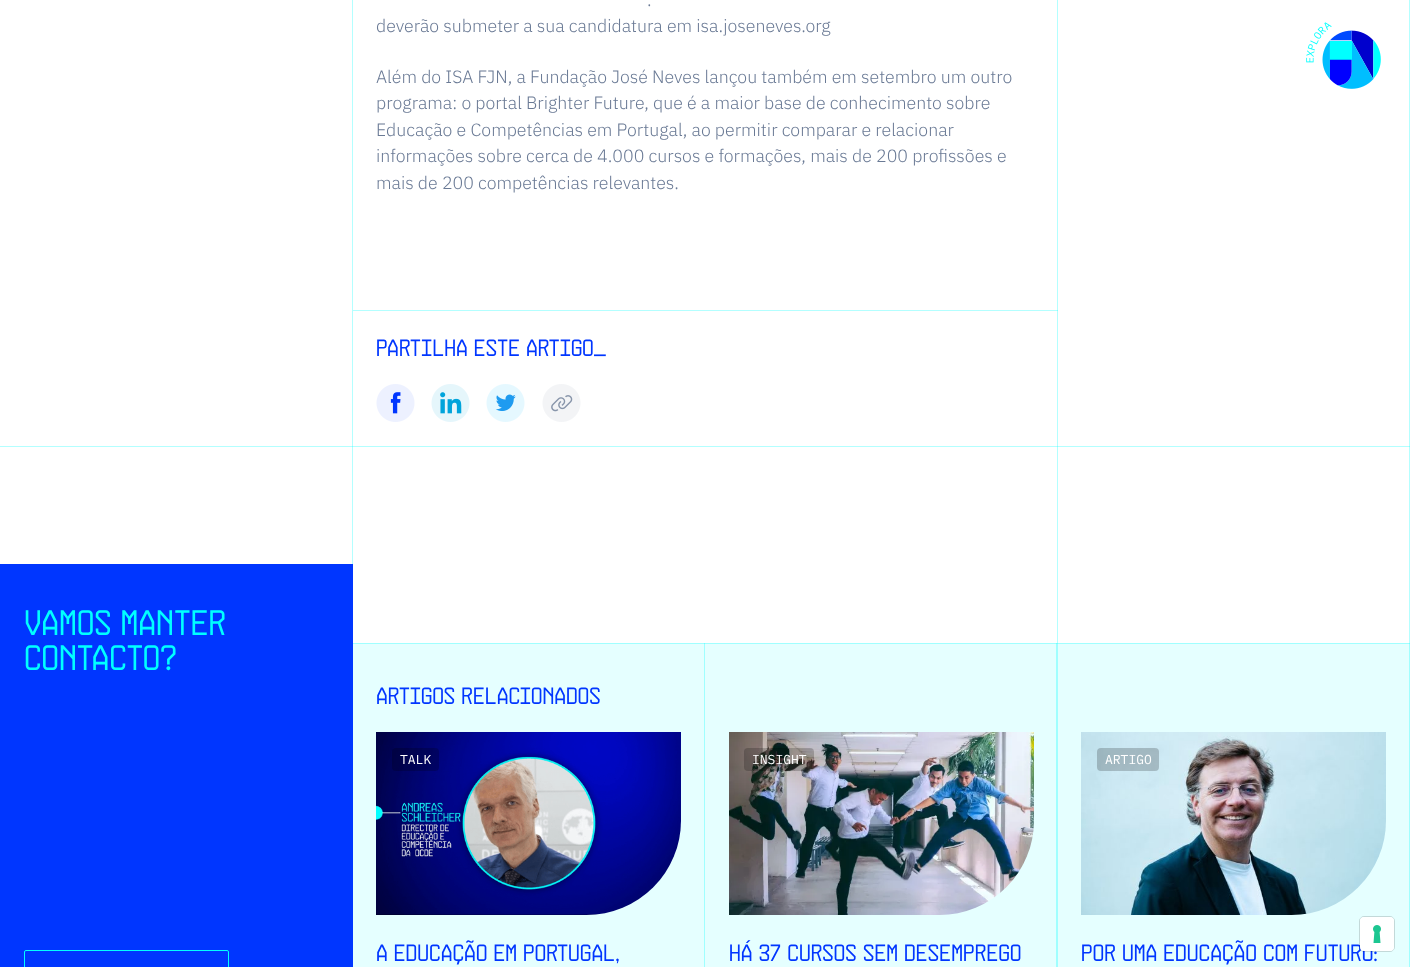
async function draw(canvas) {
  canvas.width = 1410;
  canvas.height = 967;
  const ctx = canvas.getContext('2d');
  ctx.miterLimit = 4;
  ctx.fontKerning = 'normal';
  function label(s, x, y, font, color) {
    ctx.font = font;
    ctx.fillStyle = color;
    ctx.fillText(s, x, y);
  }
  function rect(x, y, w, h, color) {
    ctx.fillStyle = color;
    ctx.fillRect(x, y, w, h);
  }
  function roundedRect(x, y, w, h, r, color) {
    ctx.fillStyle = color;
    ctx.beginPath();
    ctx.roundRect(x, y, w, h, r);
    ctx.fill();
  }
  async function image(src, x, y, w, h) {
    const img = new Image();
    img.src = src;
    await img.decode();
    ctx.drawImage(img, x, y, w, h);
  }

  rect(0, 0, 1410, 967, '#fff');
  rect(0, 446, 1410, 1, '#b3ffff');
  rect(1409, 0, 1, 643, '#b3ffff');
  rect(1409, 446, 1, 1, '#7dffff');
  rect(1057, 446, 1, 197, '#b3ffff');
  rect(1057, 446, 1, 1, '#7dffff');
  rect(353, 310, 705, 1, '#b3ffff');
  rect(352, 0, 1, 564, '#b3ffff');
  label('.', 647, 6, '300 17.75px IBM Plex Sans', '#6a7a95');
  label('deverão submeter a sua candidatura em isa.joseneves.org', 376, 32, '300 17.75px IBM Plex Sans', '#6a7a95');
  label('Além do ISA FJN, a Fundação José Neves lançou também em setembro um outro', 376, 83, '300 17.75px IBM Plex Sans', '#6a7a95');
  label('programa: o portal Brighter Future, que é a maior base de conhecimento sobre', 376, 109, '300 17.75px IBM Plex Sans', '#6a7a95');
  label('Educação e Competências em Portugal, ao permitir comparar e relacionar', 376, 136, '300 17.75px IBM Plex Sans', '#6a7a95');
  label('informações sobre cerca de 4.000 cursos e formações, mais de 200 profissões e', 376, 162, '300 17.75px IBM Plex Sans', '#6a7a95');
  label('mais de 200 competências relevantes.', 376, 189, '300 17.75px IBM Plex Sans', '#6a7a95');
  label('Partilha este artigo_', 376, 356, '23.6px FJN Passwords', '#0036ff');
  await image('assets/img1.png', 376, 384, 39, 38);
  await image('assets/img2.png', 431, 384, 39, 38);
  await image('assets/img3.png', 486, 384, 39, 38);
  await image('assets/img4.png', 542, 384, 39, 38);
  rect(1057, 0, 1, 446, '#b3ffff');
  rect(1057, 310, 1, 1, '#7dffff');
  rect(352, 446, 1, 1, '#7dffff');
  rect(0, 564, 353, 403, '#0036ff');
  label('Vamos manter', 24, 635, '35.5px FJN Passwords', '#0ff');
  label('contacto?', 24, 670, '35.5px FJN Passwords', '#0ff');
  ctx.beginPath();
  ctx.roundRect(24.5, 950.5, 204, 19, 1.5);
  ctx.strokeStyle = '#0ff';
  ctx.stroke();
  rect(353, 644, 1056, 323, '#e5ffff');
  rect(353, 643, 1057, 1, '#a0ffff');
  rect(1409, 643, 1, 324, '#a0ffff');
  rect(1409, 643, 1, 1, '#70ffff');
  rect(1056, 643, 2, 324, '#a0ffff');
  rect(1056, 643, 2, 1, '#70ffff');
  label('Artigos relacionados', 376, 704, '23.6px FJN Passwords', '#0036ff');
  rect(704, 643, 1, 324, '#a0ffff');
  rect(704, 643, 1, 1, '#70ffff');
  await image('assets/img5.png', 376, 732, 305, 183);
  roundedRect(392, 748, 47, 23, 4, '#00000033');
  label('TALK', 400, 764, '13px IBM Plex Mono', '#fff');
  label('A Educação em Portugal,', 376, 961, '23.6px FJN Passwords', '#0036ff');
  await image('assets/img6.png', 729, 732, 305, 183);
  roundedRect(744, 748, 70, 23, 4, '#00000033');
  label('INSIGHT', 752, 764, '13px IBM Plex Mono', '#fff');
  label('Há 37 cursos sem desemprego', 729, 961, '23.6px FJN Passwords', '#0036ff');
  await image('assets/img7.png', 1081, 732, 305, 183);
  roundedRect(1097, 748, 62, 23, 4, '#00000033');
  label('ARTIGO', 1105, 764, '13px IBM Plex Mono', '#fff');
  label('Por uma Educação com Futuro:', 1081, 961, '23.6px FJN Passwords', '#0036ff');
  await image('assets/img8.png', 1306, 22, 75, 67);
  ctx.beginPath();
  ctx.roundRect(1359.5, 916.5, 35, 35, 4.5);
  ctx.strokeStyle = '#00000026';
  ctx.stroke();
  roundedRect(1360, 917, 34, 34, 4, '#fff');
  await image('assets/img9.png', 1373, 925, 8, 18);
}

draw(document.querySelector('canvas'));
